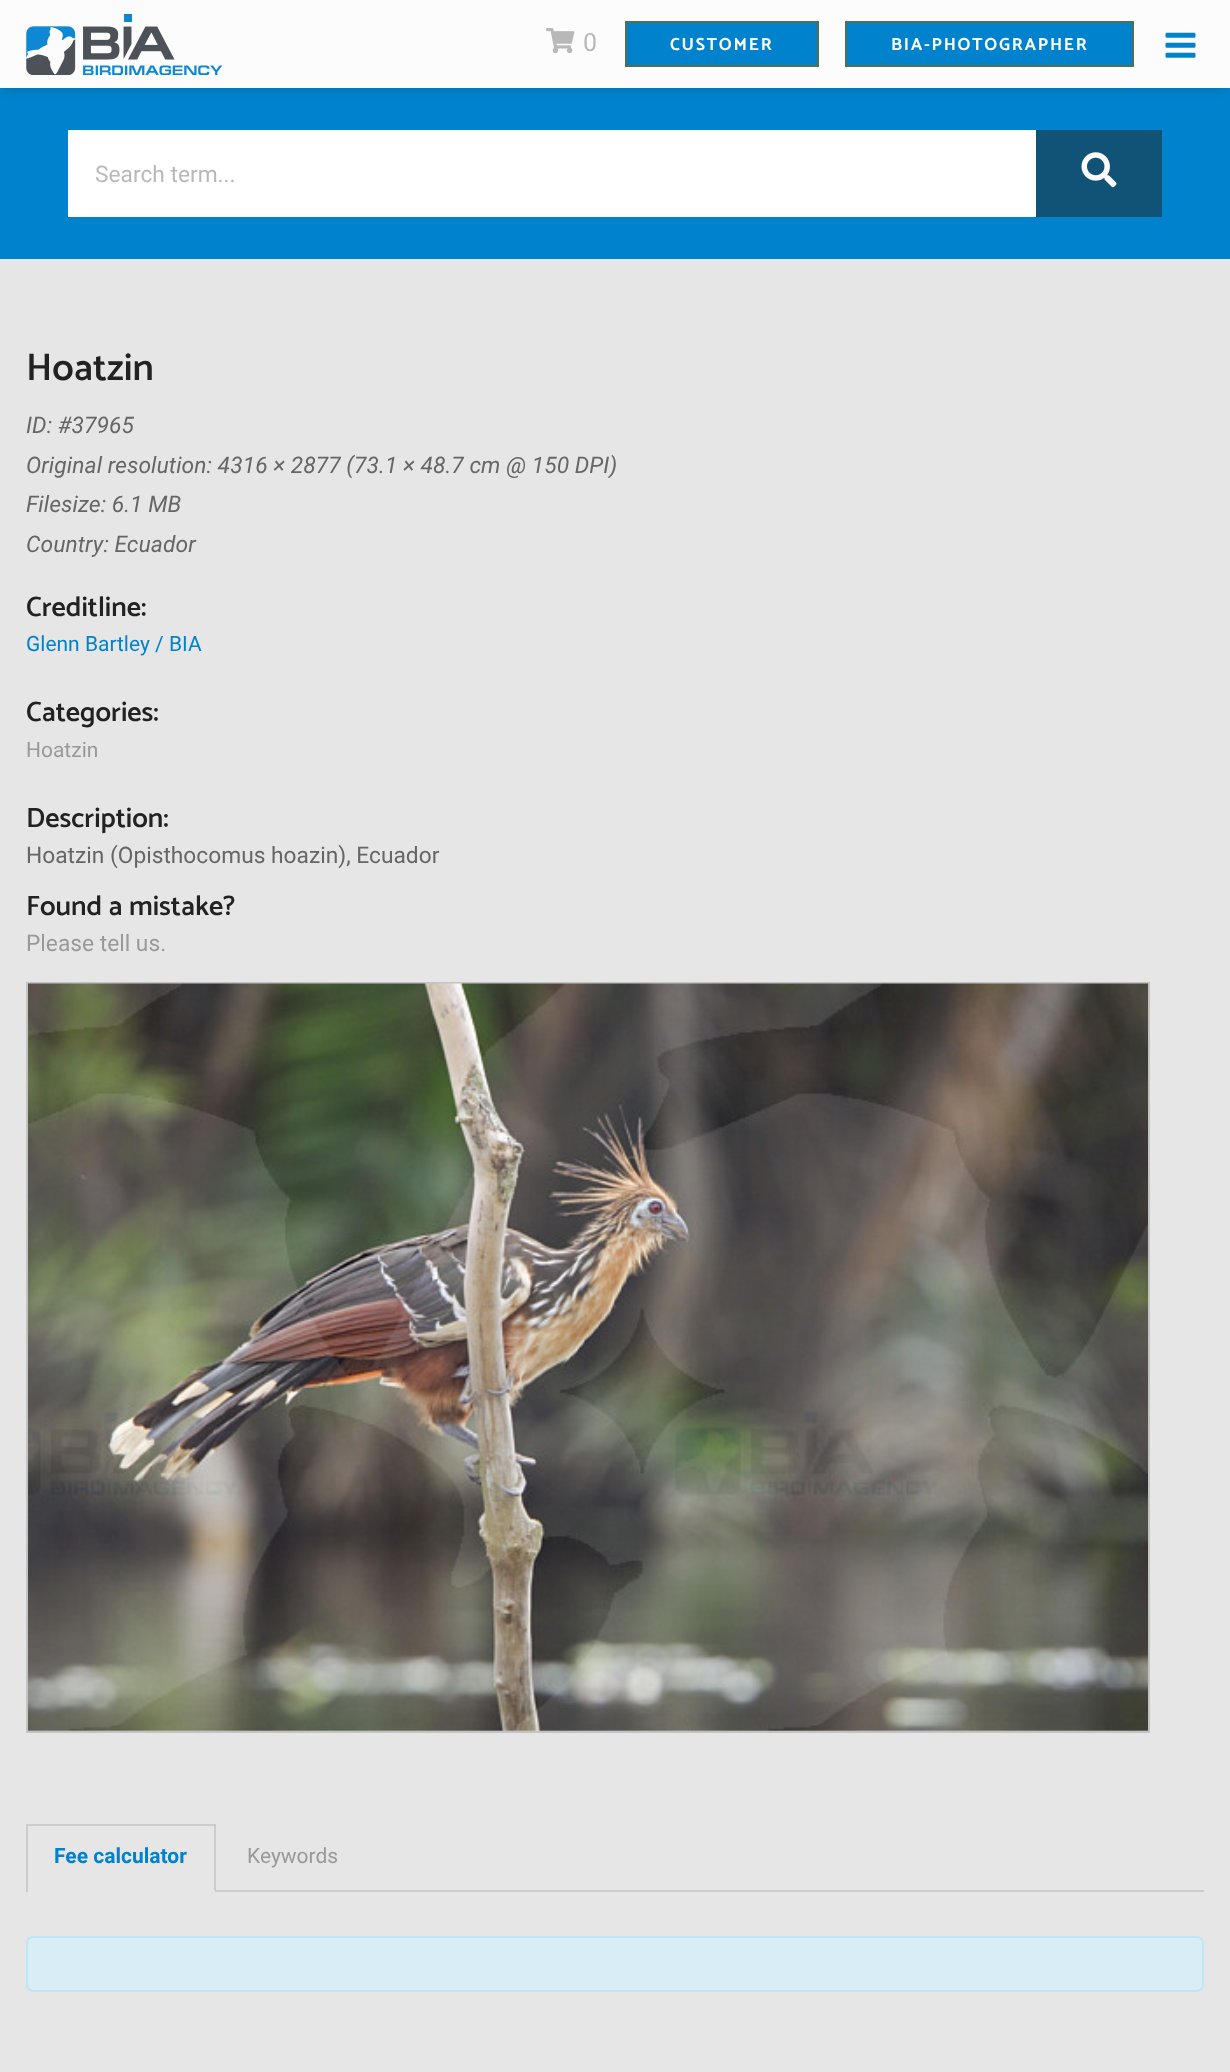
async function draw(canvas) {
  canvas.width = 1230;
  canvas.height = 2072;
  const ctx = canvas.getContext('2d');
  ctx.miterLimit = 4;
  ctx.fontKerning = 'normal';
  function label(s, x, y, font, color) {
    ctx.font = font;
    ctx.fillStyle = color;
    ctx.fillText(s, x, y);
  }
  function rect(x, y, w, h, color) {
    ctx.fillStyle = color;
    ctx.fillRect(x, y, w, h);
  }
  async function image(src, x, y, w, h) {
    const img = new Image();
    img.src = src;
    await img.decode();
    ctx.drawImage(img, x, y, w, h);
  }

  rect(0, 0, 1230, 2072, '#e6e6e6');
  rect(0, 88, 1230, 171, '#0083cc');
  ctx.fillStyle = '#0000001f';
  ctx.filter = 'blur(4.5px)';
  ctx.beginPath();
  ctx.rect(5, 14, 1220, 77);
  ctx.fill();
  ctx.filter = 'none';
  rect(0, 0, 1230, 88, '#fcfcfc');
  await image('assets/img1.png', 26, 14, 196, 61);
  await image('assets/img2.png', 546, 28, 29, 26);
  ctx.letterSpacing = '1.75px';
  label('0', 583, 51, '25px Roboto', '#b8b8b8');
  ctx.fillStyle = '#0083cc';
  ctx.beginPath();
  ctx.rect(626, 22, 192, 44);
  ctx.fill();
  ctx.strokeStyle = '#516f51';
  ctx.lineWidth = 2;
  ctx.stroke();
  label('CUSTOMER', 670, 50, 'bold 17.5px Catamaran', '#fcfcfc');
  ctx.fillStyle = '#0083cc';
  ctx.beginPath();
  ctx.rect(846, 22, 287, 44);
  ctx.fill();
  ctx.stroke();
  label('BIA-PHOTOGRAPHER', 891, 50, 'bold 17.5px Catamaran', '#fcfcfc');
  await image('assets/img3.png', 1165, 32, 31, 26);
  rect(1036, 130, 126, 87, '#115277');
  rect(68, 130, 968, 87, '#fff');
  ctx.letterSpacing = '0px';
  label('Search term...', 95, 182, '22.75px Roboto', '#b8b8b8');
  await image('assets/img4.png', 1081, 152, 36, 36);
  label('Hoatzin', 26, 380, '600 38.5px Catamaran', '#222');
  label('ID: #37965', 26, 433, 'italic 22.75px Roboto', '#666');
  label('Original resolution: 4316 × 2877 (73.1 × 48.7 cm @ 150 DPI)', 26, 473, 'italic 22.75px Roboto', '#666');
  label('Filesize: 6.1 MB', 26, 512, 'italic 22.75px Roboto', '#666');
  label('Country: Ecuador', 26, 552, 'italic 22.75px Roboto', '#666');
  label('Creditline:', 26, 616, '600 28px Catamaran', '#222');
  label('Glenn Bartley / BIA', 26, 651, '21px Roboto', '#0083cc');
  label('Categories:', 26, 721, '600 28px Catamaran', '#222');
  label('Hoatzin', 26, 757, '21px Roboto', '#999');
  label('Description:', 26, 827, '600 28px Catamaran', '#222');
  label('Hoatzin (Opisthocomus hoazin), Ecuador', 26, 863, '22.75px Roboto', '#666');
  label('Found a mistake?', 26, 915, '600 28px Catamaran', '#222');
  label('Please tell us.', 26, 951, '22.75px Roboto', '#999');
  ctx.strokeStyle = '#c3c3c3';
  ctx.strokeRect(27, 983, 1122, 749);
  await image('assets/img5.png', 28, 983, 1120, 748);
  rect(216, 1890, 988, 2, '#ccc');
  rect(26, 1824, 189, 2, '#ccc');
  rect(214, 1824, 2, 68, '#ccc');
  rect(214, 1890, 1, 2, '#e6e6e6');
  rect(26, 1824, 2, 68, '#ccc');
  label('Fee calculator', 54, 1863, 'bold 21px Roboto', '#0083cc');
  label('Keywords', 247, 1863, '21px Roboto', '#999');
  ctx.fillStyle = '#d9edf7';
  ctx.beginPath();
  ctx.roundRect(27, 1937, 1176, 54, 6);
  ctx.fill();
  ctx.strokeStyle = '#bce8f1';
  ctx.stroke();
}

draw(document.querySelector('canvas'));
